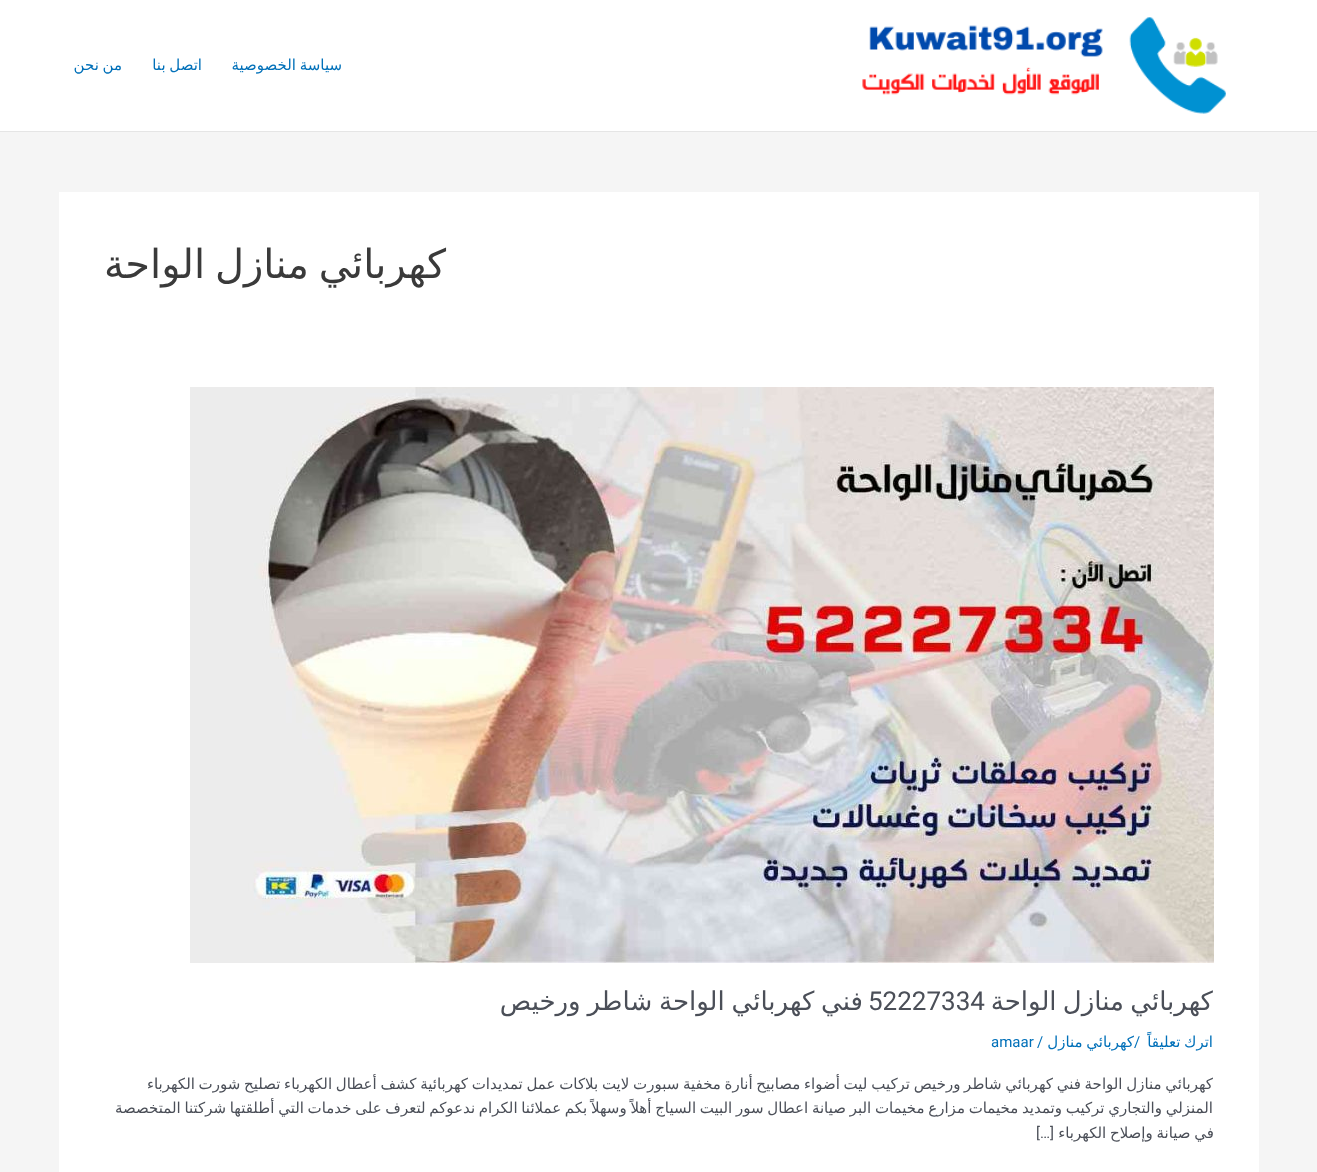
async function draw(canvas) {
  canvas.width = 1317;
  canvas.height = 1172;
  const ctx = canvas.getContext('2d');
  ctx.miterLimit = 4;
  ctx.fontKerning = 'normal';
  function label(s, x, y, font, color) {
    ctx.font = font;
    ctx.fillStyle = color;
    ctx.fillText(s, x, y);
  }
  function rect(x, y, w, h, color) {
    ctx.fillStyle = color;
    ctx.fillRect(x, y, w, h);
  }
  async function image(src, x, y, w, h) {
    const img = new Image();
    img.src = src;
    await img.decode();
    ctx.drawImage(img, x, y, w, h);
  }

  rect(0, 0, 1317, 1172, '#f5f5f5');
  rect(0, 0, 1317, 131, '#fff');
  rect(0, 131, 1317, 1, '#e5e5e5');
  await image('assets/img1.png', 862, 17, 364, 97);
  ctx.wordSpacing = '-1.05px';
  ctx.direction = 'rtl';
  label('سياسة الخصوصية', 342, 70, '15px DejaVu Sans', '#0170b9');
  label('اتصل بنا', 202, 70, '15px DejaVu Sans', '#0170b9');
  label('من نحن', 122, 70, '15px DejaVu Sans', '#0170b9');
  rect(59, 192, 1200, 980, '#fff');
  ctx.wordSpacing = '-3px';
  label('كهربائي منازل الواحة', 446, 278, '40px DejaVu Sans', '#3a3a3a');
  await image('assets/img2.png', 190, 387, 1024, 576);
  ctx.save();
  ctx.beginPath();
  ctx.rect(104, 387, 1110, 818);
  ctx.clip();
  ctx.wordSpacing = '-2px';
  label('كهربائي منازل الواحة', 1213, 1010, '26px DejaVu Sans', '#4b4f58');
  ctx.restore();
  ctx.wordSpacing = '0px';
  ctx.direction = 'ltr';
  label('52227334', 868, 1010, '26px Roboto', '#4b4f58');
  ctx.wordSpacing = '-1.5px';
  ctx.direction = 'rtl';
  label('فني كهربائي الواحة شاطر ورخيص', 863, 1010, '26px DejaVu Sans', '#4b4f58');
  ctx.wordSpacing = '-1.05px';
  label('اترك تعليقاً', 1213, 1047, '15px DejaVu Sans', '#0170b9');
  ctx.wordSpacing = '0px';
  ctx.direction = 'ltr';
  label('/', 1134, 1047, '15px Roboto', '#0170b9');
  ctx.wordSpacing = '-1.05px';
  ctx.direction = 'rtl';
  label('كهربائي منازل', 1134, 1047, '15px DejaVu Sans', '#0170b9');
  ctx.wordSpacing = '0px';
  ctx.direction = 'ltr';
  label('/', 1037, 1047, '15px Roboto', '#0170b9');
  label('amaar', 991, 1047, '15px Roboto', '#0170b9');
  ctx.save();
  ctx.beginPath();
  ctx.rect(104, 387, 1110, 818);
  ctx.clip();
  ctx.wordSpacing = '-1.05px';
  ctx.direction = 'rtl';
  label('كهربائي منازل الواحة فني كهربائي شاطر ورخيص تركيب ليت أضواء مصابيح أنارة مخفية سبورت لايت بلاكات عمل تمديدات كهربائية كشف أعطال الكهرباء تصليح شورت الكهرباء', 1213, 1089, '15px DejaVu Sans', '#4b4f58');
  label('المنزلي والتجاري تركيب وتمديد مخيمات مزارع مخيمات البر صيانة اعطال سور البيت السياج أهلاً وسهلاً بكم عملائنا الكرام ندعوكم لتعرف على خدمات التي أطلقتها شركتنا المتخصصة', 1213, 1113, '15px DejaVu Sans', '#4b4f58');
  ctx.wordSpacing = '-1px';
  label('في صيانة وإصلاح الكهرباء', 1214, 1138, '15px DejaVu Sans', '#4b4f58');
  ctx.restore();
  ctx.direction = 'rtl';
  label('[…]', 1054, 1138, '15px Roboto', '#4b4f58');
}

draw(document.querySelector('canvas'));
